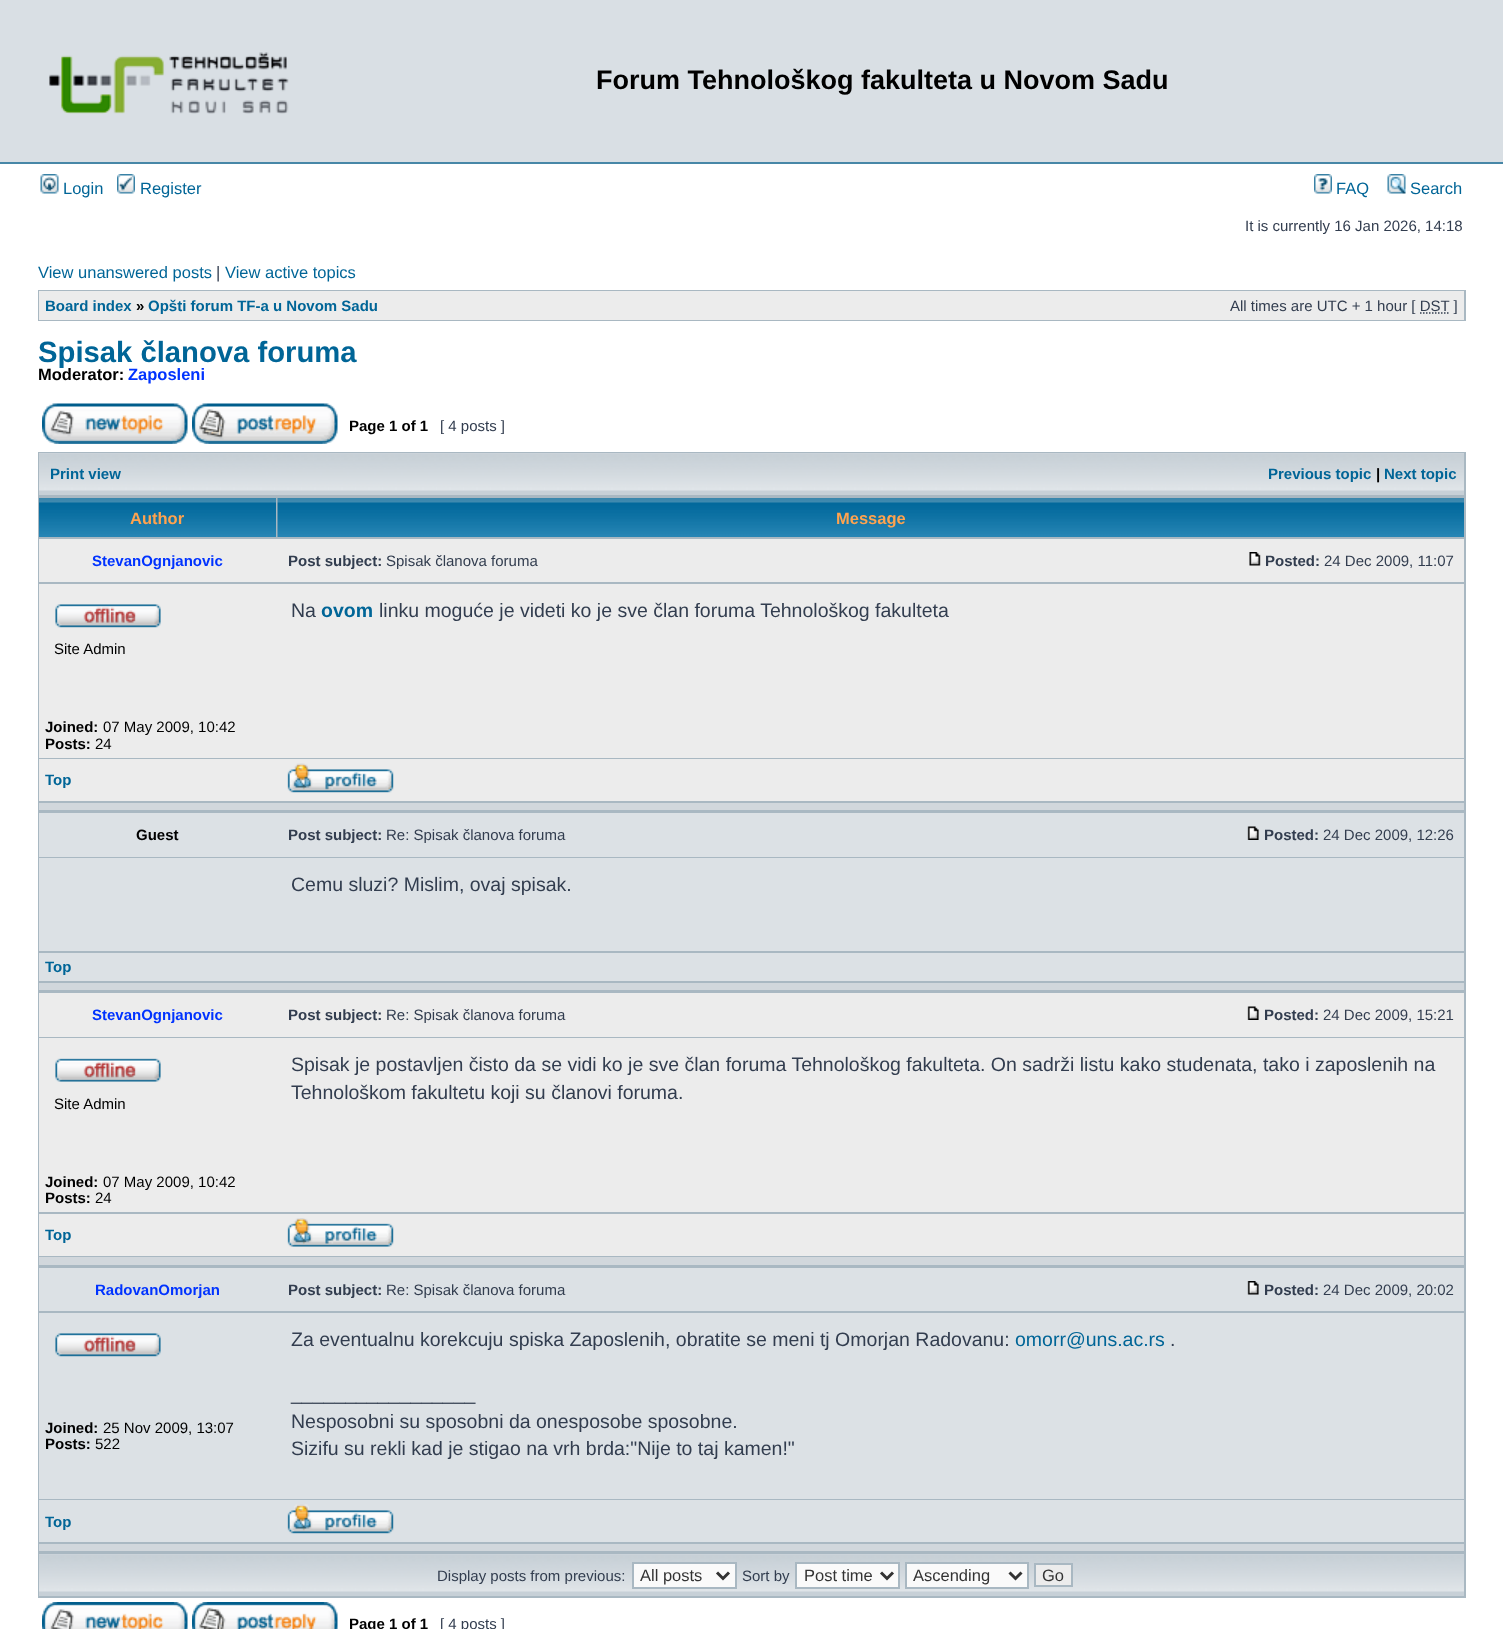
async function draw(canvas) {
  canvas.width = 1503;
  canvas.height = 1629;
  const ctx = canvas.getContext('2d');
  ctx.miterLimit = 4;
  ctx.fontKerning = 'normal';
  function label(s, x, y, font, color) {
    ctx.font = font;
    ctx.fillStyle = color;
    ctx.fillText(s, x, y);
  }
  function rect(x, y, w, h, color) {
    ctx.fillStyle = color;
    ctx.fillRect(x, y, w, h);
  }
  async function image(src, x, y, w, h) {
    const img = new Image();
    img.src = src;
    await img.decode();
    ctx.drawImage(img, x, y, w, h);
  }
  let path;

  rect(0, 0, 1503, 1629, '#fff');
  rect(0, 0, 1503, 162, '#d9dfe4');
  rect(0, 162, 1503, 2, '#4787a7');
  await image('assets/img1.png', 49, 52, 240, 62);
  label('Forum Tehnološkog fakulteta u Novom Sadu', 596, 89, 'bold 27px Liberation Sans', '#000');
  await image('assets/img2.png', 40, 174, 19, 20);
  label('Login', 63, 194, '16.5px Liberation Sans', '#006597');
  await image('assets/img3.png', 117, 174, 18, 20);
  label('Register', 140, 194, '16.5px Liberation Sans', '#006597');
  await image('assets/img4.png', 1314, 174, 18, 20);
  label('FAQ', 1336, 194, '16.5px Liberation Sans', '#006597');
  await image('assets/img5.png', 1387, 174, 19, 20);
  label('Search', 1410, 194, '16.5px Liberation Sans', '#006597');
  label('It is currently 16 Jan 2026, 14:18', 1245, 231, '15px Liberation Sans', '#323d4f');
  label('View unanswered posts', 38, 278, '16.5px Liberation Sans', '#006597');
  label('|', 216, 278, '16.5px Liberation Sans', '#323d4f');
  label('View active topics', 225, 278, '16.5px Liberation Sans', '#006597');
  rect(38, 290, 1428, 31, '#a9b8c2');
  rect(39, 291, 1425, 29, '#ececec');
  label('Board index', 45, 311, 'bold 15px Liberation Sans', '#006597');
  label('»', 136, 311, 'bold 15px Liberation Sans', '#000');
  label('Opšti forum TF-a u Novom Sadu', 148, 311, 'bold 15px Liberation Sans', '#006597');
  label('All times are UTC + 1 hour [ DST ]', 1230, 311, '15px Liberation Sans', '#323d4f');
  path = new Path2D('M1420 313H1449.5');
  ctx.strokeStyle = '#323d4f';
  ctx.lineWidth = 1.5;
  ctx.setLineDash([1.5, 1.5]);
  ctx.stroke(path);
  label('Spisak članova foruma', 38, 362, 'bold 29.25px Liberation Sans', '#006597');
  label('Moderator:', 38, 380, 'bold 16.5px Liberation Sans', '#000');
  label('Zaposleni', 128, 380, 'bold 16.5px Liberation Sans', '#03f');
  await image('assets/img6.png', 42, 403, 146, 41);
  await image('assets/img7.png', 192, 403, 146, 41);
  label('Page 1 of 1', 349, 431, 'bold 15px Liberation Sans', '#000');
  label('[ 4 posts ]', 440, 431, '15px Liberation Sans', '#323d4f');
  rect(38, 452, 1428, 1146, '#a9b8c2');
  rect(39, 491, 1425, 4, '#c7d0d7');
  await image('assets/img8.png', 39, 453, 1425, 38);
  label('Print view', 50, 479, 'bold 15px Liberation Sans', '#006597');
  label('Previous topic', 1268, 479, 'bold 15px Liberation Sans', '#006597');
  label('|', 1376, 479, 'bold 15px Liberation Sans', '#000');
  label('Next topic', 1384, 479, 'bold 15px Liberation Sans', '#006597');
  await image('assets/img9.png', 39, 498, 237, 39);
  label('Author', 130, 524, 'bold 16.5px Liberation Sans', '#ffa34f');
  await image('assets/img10.png', 277, 498, 1187, 39);
  label('Message', 836, 524, 'bold 16.5px Liberation Sans', '#ffa34f');
  rect(39, 539, 1425, 43, '#ececec');
  label('StevanOgnjanovic', 92, 566, 'bold 15px Liberation Sans', '#03f');
  label('Post subject:', 288, 566, 'bold 15px Liberation Sans', '#323d4f');
  label('Spisak članova foruma', 386, 566, '15px Liberation Sans', '#323d4f');
  await image('assets/img11.png', 1249, 552, 12, 14);
  label('Posted:', 1265, 566, 'bold 15px Liberation Sans', '#323d4f');
  label('24 Dec 2009, 11:07', 1324, 566, '15px Liberation Sans', '#323d4f');
  rect(39, 584, 1425, 174, '#ececec');
  label('Na', 291, 617, '19.5px Liberation Sans', '#323d4f');
  label('ovom', 321, 617, 'bold 19.5px Liberation Sans', '#006597');
  label('linku moguće je videti ko je sve član foruma Tehnološkog fakulteta', 379, 617, '19.5px Liberation Sans', '#323d4f');
  await image('assets/img12.png', 55, 604, 106, 24);
  label('Site Admin', 54, 654, '15px Liberation Sans', '#000');
  label('Joined:', 45, 732, 'bold 15px Liberation Sans', '#000');
  label('07 May 2009, 10:42', 103, 732, '15px Liberation Sans', '#000');
  label('Posts:', 45, 749, 'bold 15px Liberation Sans', '#000');
  label('24', 95, 749, '15px Liberation Sans', '#000');
  rect(39, 759, 1425, 42, '#ececec');
  label('Top', 45, 785, 'bold 15px Liberation Sans', '#006597');
  await image('assets/img13.png', 287, 763, 107, 30);
  rect(39, 803, 1425, 7, '#d1d7dc');
  rect(39, 813, 1425, 44, '#dce1e5');
  label('Guest', 136, 840, 'bold 15px Liberation Sans', '#000');
  label('Post subject:', 288, 840, 'bold 15px Liberation Sans', '#323d4f');
  label('Re: Spisak članova foruma', 386, 840, '15px Liberation Sans', '#323d4f');
  await image('assets/img14.png', 1247, 826, 12, 14);
  label('Posted:', 1264, 840, 'bold 15px Liberation Sans', '#323d4f');
  label('24 Dec 2009, 12:26', 1323, 840, '15px Liberation Sans', '#323d4f');
  rect(39, 858, 1425, 93, '#dce1e5');
  label('Cemu sluzi? Mislim, ovaj spisak.', 291, 891, '19.5px Liberation Sans', '#323d4f');
  rect(39, 953, 1425, 28, '#dce1e5');
  label('Top', 45, 972, 'bold 15px Liberation Sans', '#006597');
  rect(39, 983, 1425, 7, '#d1d7dc');
  rect(39, 993, 1425, 44, '#ececec');
  label('StevanOgnjanovic', 92, 1020, 'bold 15px Liberation Sans', '#03f');
  label('Post subject:', 288, 1020, 'bold 15px Liberation Sans', '#323d4f');
  label('Re: Spisak članova foruma', 386, 1020, '15px Liberation Sans', '#323d4f');
  await image('assets/img15.png', 1247, 1006, 12, 14);
  label('Posted:', 1264, 1020, 'bold 15px Liberation Sans', '#323d4f');
  label('24 Dec 2009, 15:21', 1323, 1020, '15px Liberation Sans', '#323d4f');
  rect(39, 1038, 1425, 174, '#ececec');
  label('Spisak je postavljen čisto da se vidi ko je sve član foruma Tehnološkog fakulteta. On sadrži listu kako studenata, tako i zaposlenih na', 291, 1071, '19.5px Liberation Sans', '#323d4f');
  label('Tehnološkom fakultetu koji su članovi foruma.', 291, 1099, '19.5px Liberation Sans', '#323d4f');
  await image('assets/img16.png', 55, 1058, 106, 24);
  label('Site Admin', 54, 1109, '15px Liberation Sans', '#000');
  label('Joined:', 45, 1187, 'bold 15px Liberation Sans', '#000');
  label('07 May 2009, 10:42', 103, 1187, '15px Liberation Sans', '#000');
  label('Posts:', 45, 1203, 'bold 15px Liberation Sans', '#000');
  label('24', 95, 1203, '15px Liberation Sans', '#000');
  rect(39, 1214, 1425, 42, '#ececec');
  label('Top', 45, 1240, 'bold 15px Liberation Sans', '#006597');
  await image('assets/img17.png', 287, 1218, 107, 29);
  rect(39, 1257, 1425, 8, '#d1d7dc');
  rect(39, 1268, 1425, 43, '#dce1e5');
  label('RadovanOmorjan', 95, 1295, 'bold 15px Liberation Sans', '#03f');
  label('Post subject:', 288, 1295, 'bold 15px Liberation Sans', '#323d4f');
  label('Re: Spisak članova foruma', 386, 1295, '15px Liberation Sans', '#323d4f');
  await image('assets/img18.png', 1247, 1281, 12, 14);
  label('Posted:', 1264, 1295, 'bold 15px Liberation Sans', '#323d4f');
  label('24 Dec 2009, 20:02', 1323, 1295, '15px Liberation Sans', '#323d4f');
  rect(39, 1313, 1425, 186, '#dce1e5');
  await image('assets/img19.png', 55, 1333, 106, 24);
  label('Joined:', 45, 1433, 'bold 15px Liberation Sans', '#000');
  label('25 Nov 2009, 13:07', 103, 1433, '15px Liberation Sans', '#000');
  label('Posts:', 45, 1449, 'bold 15px Liberation Sans', '#000');
  label('522', 95, 1449, '15px Liberation Sans', '#000');
  label('Za eventualnu korekcuju spiska Zaposlenih, obratite se meni tj Omorjan Radovanu:', 291, 1346, '19.5px Liberation Sans', '#323d4f');
  label('omorr@uns.ac.rs', 1015, 1346, '19.5px Liberation Sans', '#006597');
  label('.', 1170, 1346, '19.5px Liberation Sans', '#323d4f');
  label('_________________', 291, 1400, '19.5px Liberation Sans', '#323d4f');
  label('Nesposobni su sposobni da onesposobe sposobne.', 291, 1428, '19.5px Liberation Sans', '#323d4f');
  label('Sizifu su rekli kad je stigao na vrh brda:"Nije to taj kamen!"', 291, 1455, '19.5px Liberation Sans', '#323d4f');
  rect(39, 1500, 1425, 42, '#dce1e5');
  label('Top', 45, 1527, 'bold 15px Liberation Sans', '#006597');
  await image('assets/img20.png', 287, 1504, 107, 30);
  rect(39, 1544, 1425, 7, '#d1d7dc');
  rect(39, 1592, 1425, 4, '#c7d0d7');
  await image('assets/img8.png', 39, 1554, 1425, 38);
  label('Display posts from previous:', 437, 1581, '15px Liberation Sans', '#323d4f');
  ctx.fillStyle = '#fafafa';
  ctx.beginPath();
  ctx.rect(633, 1563, 103, 25);
  ctx.fill();
  ctx.strokeStyle = '#a9b8c2';
  ctx.lineWidth = 2;
  ctx.setLineDash([]);
  ctx.stroke();
  path = new Path2D('M717 1572.5L723 1578.5L729 1572.5');
  ctx.strokeStyle = '#333';
  ctx.lineWidth = 3;
  ctx.stroke(path);
  label('All posts', 640, 1581, '16.5px Liberation Sans', '#333');
  label('Sort by', 742, 1581, '15px Liberation Sans', '#323d4f');
  ctx.fillStyle = '#fafafa';
  ctx.beginPath();
  ctx.rect(796, 1563, 103, 25);
  ctx.fill();
  ctx.strokeStyle = '#a9b8c2';
  ctx.lineWidth = 2;
  ctx.stroke();
  path = new Path2D('M881 1572.5L887 1578.5L893 1572.5');
  ctx.strokeStyle = '#333';
  ctx.lineWidth = 3;
  ctx.stroke(path);
  label('Post time', 804, 1581, '16.5px Liberation Sans', '#333');
  ctx.fillStyle = '#fafafa';
  ctx.beginPath();
  ctx.rect(906, 1563, 122, 25);
  ctx.fill();
  ctx.strokeStyle = '#a9b8c2';
  ctx.lineWidth = 2;
  ctx.stroke();
  path = new Path2D('M1009.5 1572.5L1015.5 1578.5L1021.5 1572.5');
  ctx.strokeStyle = '#333';
  ctx.lineWidth = 3;
  ctx.stroke(path);
  label('Ascending', 913, 1581, '16.5px Liberation Sans', '#333');
  ctx.fillStyle = '#ececec';
  ctx.beginPath();
  ctx.rect(1035, 1564, 37, 22);
  ctx.fill();
  ctx.strokeStyle = '#a9b8c2';
  ctx.lineWidth = 2;
  ctx.stroke();
  label('Go', 1042, 1581, '16.5px Liberation Sans', '#333');
  await image('assets/img21.png', 42, 1602, 146, 27);
  await image('assets/img22.png', 192, 1602, 146, 27);
  label('Page 1 of 1', 349, 1629, 'bold 15px Liberation Sans', '#000');
  label('[ 4 posts ]', 440, 1629, '15px Liberation Sans', '#323d4f');
}

draw(document.querySelector('canvas'));
